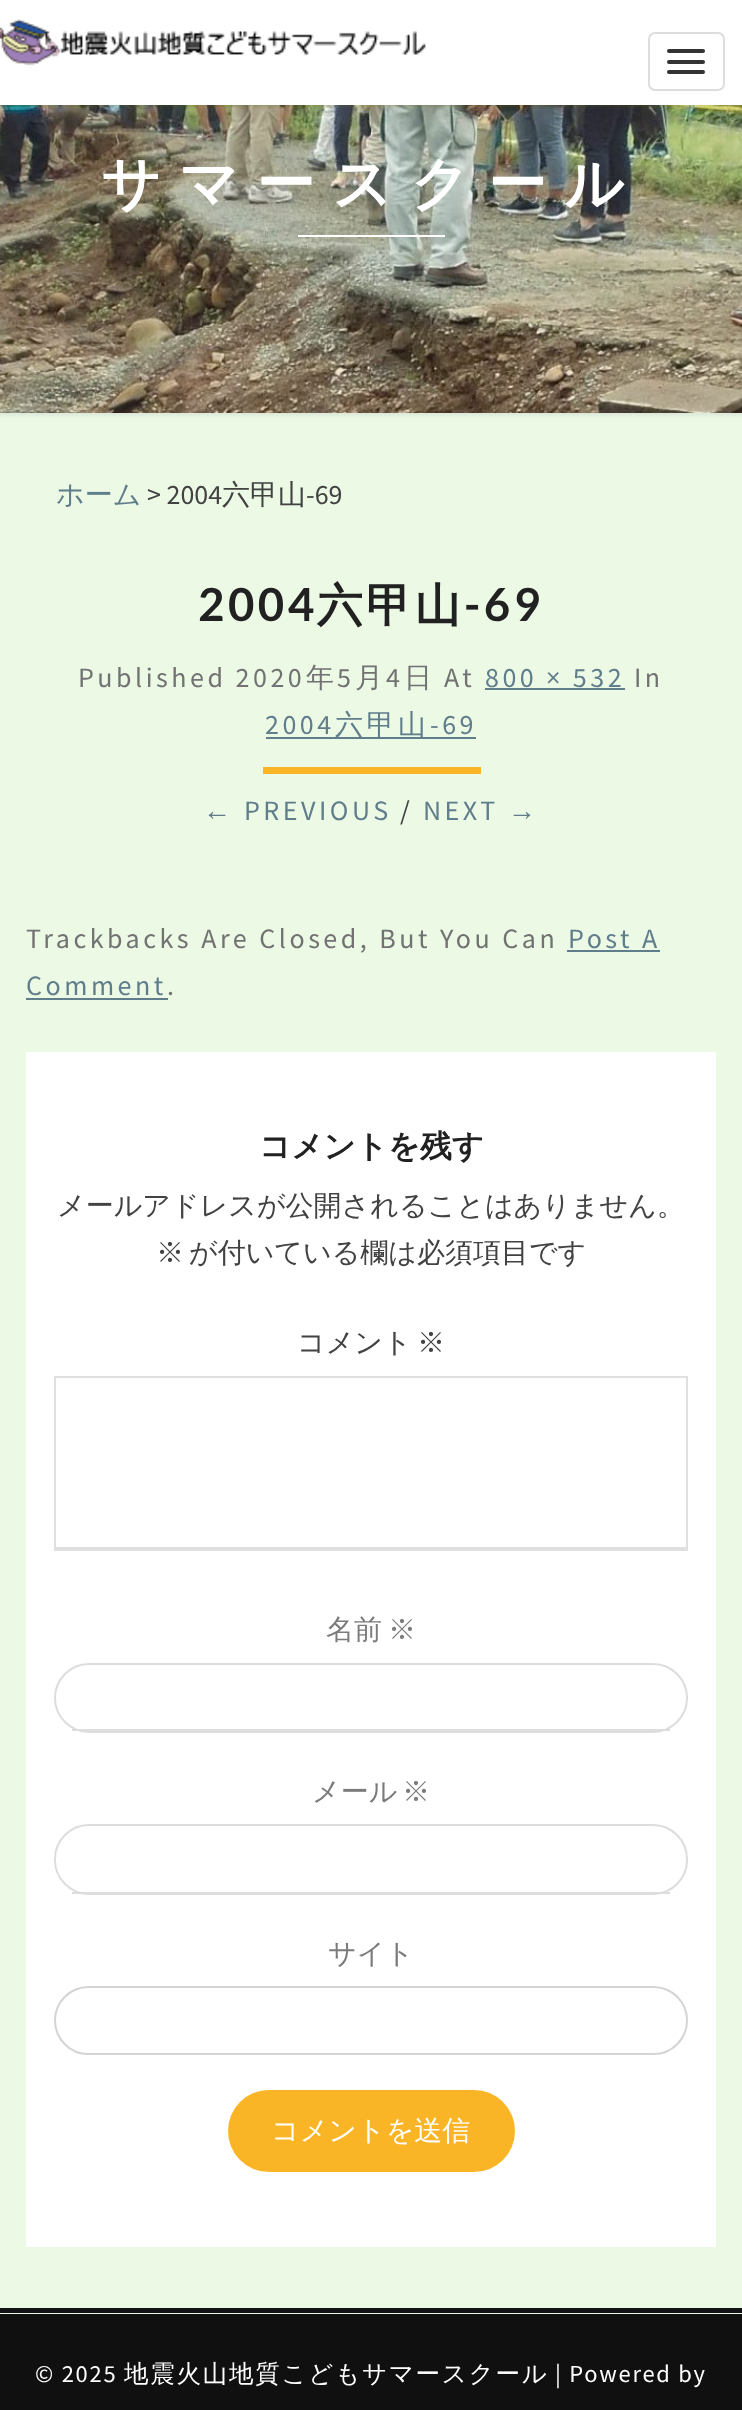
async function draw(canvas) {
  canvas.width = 742;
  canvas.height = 2410;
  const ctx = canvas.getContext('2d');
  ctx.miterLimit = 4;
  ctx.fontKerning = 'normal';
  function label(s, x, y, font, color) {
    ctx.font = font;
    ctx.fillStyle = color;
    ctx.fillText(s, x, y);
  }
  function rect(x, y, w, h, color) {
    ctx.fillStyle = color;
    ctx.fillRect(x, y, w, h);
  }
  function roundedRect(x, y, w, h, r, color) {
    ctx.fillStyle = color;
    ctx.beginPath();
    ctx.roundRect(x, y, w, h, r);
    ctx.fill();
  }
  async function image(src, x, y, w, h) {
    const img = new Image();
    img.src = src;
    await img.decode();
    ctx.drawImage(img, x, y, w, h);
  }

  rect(0, 0, 742, 2410, '#ebf9e5');
  ctx.fillStyle = '#b6b6b64d';
  ctx.filter = 'blur(2px)';
  ctx.beginPath();
  ctx.rect(-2, -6, 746, 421);
  ctx.fill();
  ctx.filter = 'none';
  await image('assets/img2.png', 0, 105, 742, 308);
  ctx.fillStyle = '#64640033';
  ctx.filter = 'blur(1px)';
  ctx.beginPath();
  ctx.rect(0, 2, 742, 105);
  ctx.fill();
  ctx.filter = 'none';
  rect(0, 0, 742, 105, '#fff');
  await image('assets/img1.png', 0, 19, 426, 47);
  ctx.beginPath();
  ctx.roundRect(649, 33, 75, 57, 6);
  ctx.strokeStyle = '#ddd';
  ctx.lineWidth = 2;
  ctx.stroke();
  roundedRect(667, 49, 38, 4, 2, '#333');
  roundedRect(667, 60, 38, 4, 2, '#333');
  roundedRect(667, 70, 38, 4, 2, '#333');
  ctx.letterSpacing = '17.5px';
  label('サマースクール', 101, 204, 'bold 58.75px WenQuanYi Zen Hei', '#fff');
  rect(298, 235, 147, 2, '#fff');
  ctx.letterSpacing = '0px';
  label('ホーム', 56, 504, '500 28px WenQuanYi Zen Hei', '#607d8b');
  label('> 2004', 147, 504, '28px Source Sans Pro', '#424242');
  label('六甲山', 222, 504, '500 28px WenQuanYi Zen Hei', '#424242');
  label('-69', 306, 504, '28px Source Sans Pro', '#424242');
  ctx.letterSpacing = '3.5px';
  label('2004', 198, 621, 'bold 45.5px Lato', '#212121');
  label('六甲山', 317, 621, 'bold 45.5px WenQuanYi Zen Hei', '#212121');
  label('-69', 464, 621, 'bold 45.5px Lato', '#212121');
  label('Published 2020', 78, 687, '28px Source Sans Pro', '#727272');
  label('年', 306, 687, '500 28px WenQuanYi Zen Hei', '#727272');
  label('5', 337, 687, '28px Source Sans Pro', '#727272');
  label('月', 355, 687, '500 28px WenQuanYi Zen Hei', '#727272');
  label('4', 386, 687, '28px Source Sans Pro', '#727272');
  label('日', 404, 687, '500 28px WenQuanYi Zen Hei', '#727272');
  label('At', 444, 687, '28px Source Sans Pro', '#727272');
  label('800 × 532', 485, 687, '28px Source Sans Pro', '#607d8b');
  rect(485, 688, 140, 2, '#607d8b');
  label('In', 634, 687, '28px Source Sans Pro', '#727272');
  label('2004', 265, 734, '28px Source Sans Pro', '#607d8b');
  rect(266, 737, 210, 2, '#607d8b');
  label('六甲山', 335, 734, '500 28px WenQuanYi Zen Hei', '#607d8b');
  label('-69', 430, 734, '28px Source Sans Pro', '#607d8b');
  rect(263, 767, 218, 7, '#fab526');
  label('←', 203, 820, '28px Liberation Sans', '#607d8b');
  label('PREVIOUS', 244, 820, '28px Source Sans Pro', '#607d8b');
  label('/', 400, 820, '28px Source Sans Pro', '#424242');
  label('NEXT', 423, 820, '28px Source Sans Pro', '#607d8b');
  label('→', 508, 820, '28px Liberation Sans', '#607d8b');
  label('Trackbacks Are Closed, But You Can', 26, 948, '28px Source Sans Pro', '#727272');
  label('Post A', 568, 948, '28px Source Sans Pro', '#607d8b');
  rect(567, 950, 93, 2, '#607d8b');
  label('Comment', 26, 995, '28px Source Sans Pro', '#607d8b');
  rect(26, 998, 142, 2, '#607d8b');
  label('.', 167, 995, '28px Source Sans Pro', '#727272');
  rect(26, 1052, 690, 1195, '#fff');
  ctx.letterSpacing = '0px';
  label('コメントを残す', 259, 1157, 'bold 31.5px WenQuanYi Zen Hei', '#212121');
  label('メールアドレスが公開されることはありません。', 57, 1215, '500 28px WenQuanYi Zen Hei', '#424242');
  label('※', 156, 1262, '500 28px WenQuanYi Zen Hei', '#424242');
  label('が付いている欄は必須項目です', 189, 1262, '500 28px WenQuanYi Zen Hei', '#424242');
  label('コメント', 297, 1352, '500 28px WenQuanYi Zen Hei', '#424242');
  label('※', 417, 1352, '500 28px WenQuanYi Zen Hei', '#424242');
  rect(54, 1376, 634, 2, '#e0e0e0');
  rect(686, 1376, 2, 175, '#e0e0e0');
  rect(54, 1547, 634, 4, '#e0e0e0');
  rect(54, 1376, 2, 175, '#e0e0e0');
  label('名前', 326, 1639, '500 28px WenQuanYi Zen Hei', '#7b7b7b');
  label('※', 388, 1639, '500 28px WenQuanYi Zen Hei', '#7b7b7b');
  ctx.beginPath();
  ctx.roundRect(55, 1664, 632, 68, 34);
  ctx.stroke();
  rect(72, 1729, 598, 2, '#ddd');
  label('メール', 312, 1801, '500 28px WenQuanYi Zen Hei', '#7b7b7b');
  label('※', 402, 1801, '500 28px WenQuanYi Zen Hei', '#7b7b7b');
  ctx.beginPath();
  ctx.roundRect(55, 1825, 632, 69, 34);
  ctx.stroke();
  rect(72, 1892, 598, 2, '#ddd');
  label('サイト', 328, 1963, '500 28px WenQuanYi Zen Hei', '#7b7b7b');
  ctx.beginPath();
  ctx.roundRect(55, 1987, 632, 67, 33.5);
  ctx.strokeStyle = '#d4d4d4';
  ctx.stroke();
  roundedRect(228, 2090, 287, 82, 41, '#fab526');
  label('コメントを送信', 271, 2140, '500 28px WenQuanYi Zen Hei', '#fff');
  rect(0, 2308, 742, 5, '#131313');
  rect(0, 2314, 742, 96, '#101010');
  ctx.letterSpacing = '1.75px';
  label('© 2025', 35, 2382, '24.5px Source Sans Pro', '#fff');
  label('地震火山地質こどもサマースクール', 124, 2382, '500 24.5px WenQuanYi Zen Hei', '#fff');
  label('| Powered by', 555, 2382, '24.5px Source Sans Pro', '#fff');
}

draw(document.querySelector('canvas'));
